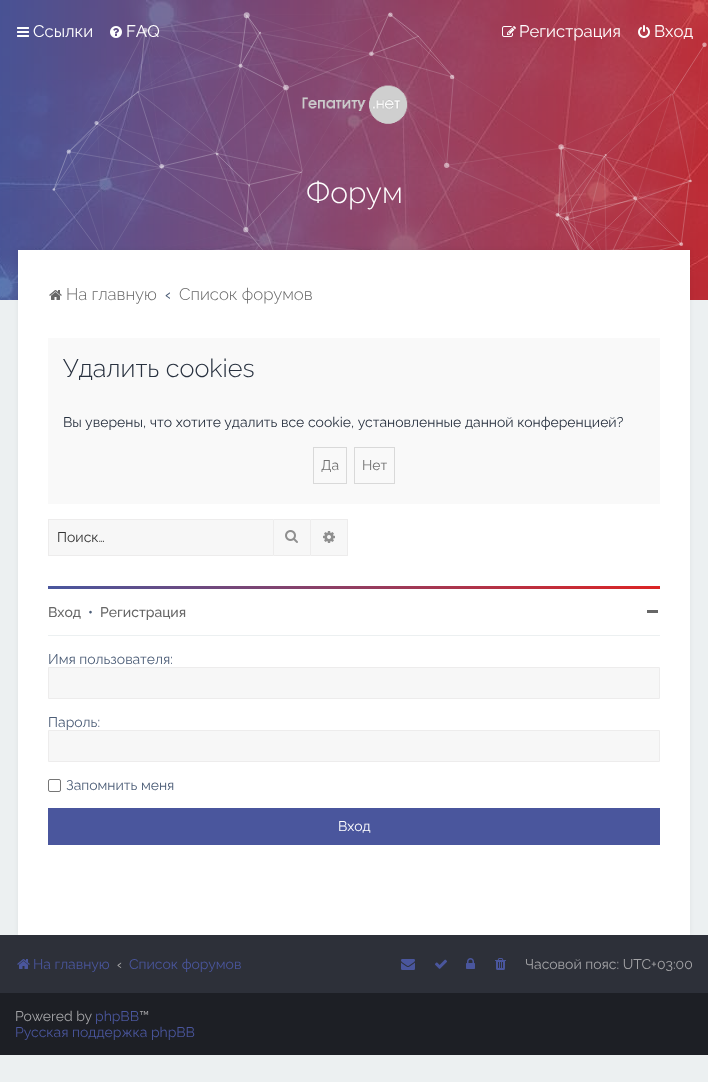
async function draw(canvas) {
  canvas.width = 708;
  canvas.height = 1082;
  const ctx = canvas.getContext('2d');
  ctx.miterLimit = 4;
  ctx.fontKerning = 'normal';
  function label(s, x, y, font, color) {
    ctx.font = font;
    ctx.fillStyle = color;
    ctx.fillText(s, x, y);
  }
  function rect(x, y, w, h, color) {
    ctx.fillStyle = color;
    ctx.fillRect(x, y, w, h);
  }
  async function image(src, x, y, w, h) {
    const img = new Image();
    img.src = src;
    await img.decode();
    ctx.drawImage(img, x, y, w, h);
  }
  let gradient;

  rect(0, 0, 708, 1082, '#ecf0f1');
  await image('assets/img5.png', 0, 0, 708, 300);
  await image('assets/img1.png', 17, 27, 12, 10);
  await image('assets/img6.png', 52, 12, 655, 238);
  label('Ссылки', 33, 37, '16.75px Raleway', '#fff');
  await image('assets/img2.png', 110, 26, 12, 12);
  label('FAQ', 126, 37, '16.75px Raleway', '#fff');
  await image('assets/img3.png', 502, 26, 14, 11);
  label('Регистрация', 519, 37, '16.75px Raleway', '#fff');
  await image('assets/img4.png', 638, 25, 12, 13);
  label('Вход', 654, 37, '16.75px Raleway', '#fff');
  await image('assets/img7.png', 302, 85, 106, 39);
  label('Форум', 306, 203, '300 30px Raleway', '#fff');
  rect(0, 935, 708, 58, '#2d3039');
  ctx.fillStyle = '#0000000d';
  ctx.filter = 'blur(2.5px)';
  ctx.beginPath();
  ctx.rect(18, 250, 672, 685);
  ctx.fill();
  ctx.filter = 'none';
  rect(18, 250, 672, 685, '#fff');
  await image('assets/img8.png', 49, 290, 13, 10);
  label('На главную', 66, 300, '300 16.75px Raleway', '#676767');
  label('‹', 165, 300, '500 16.75px Raleway', '#4c5d77');
  label('Список форумов', 179, 300, '300 16.75px Raleway', '#676767');
  rect(48, 338, 612, 166, '#f9f9f9');
  label('Удалить cookies', 63, 377, '300 25.25px Raleway', '#28313f');
  ctx.wordSpacing = '0.1px';
  label('Вы уверены, что хотите удалить все cookie, установленные данной конференцией?', 63, 427, '14px Raleway', '#28313f');
  ctx.strokeStyle = '#d9d9d9';
  ctx.strokeRect(313.5, 447.5, 33, 36);
  ctx.wordSpacing = '0px';
  label('Да', 321, 470, '14px Raleway', '#717171');
  ctx.strokeRect(354.5, 447.5, 40, 36);
  label('Нет', 362, 470, '14px Raleway', '#717171');
  rect(49, 520, 224, 35, '#f7f7f7');
  rect(48, 519, 225, 1, '#edecec');
  rect(48, 555, 225, 1, '#edecec');
  rect(48, 519, 1, 37, '#edecec');
  label('Поиск…', 57, 542, '14px Raleway', '#333');
  ctx.fillStyle = '#f7f7f7';
  ctx.beginPath();
  ctx.rect(273.5, 519.5, 37, 36);
  ctx.fill();
  ctx.strokeStyle = '#edecec';
  ctx.stroke();
  await image('assets/img9.png', 285, 530, 13, 13);
  rect(311, 520, 36, 35, '#f7f7f7');
  rect(311, 519, 37, 1, '#edecec');
  rect(347, 519, 1, 37, '#edecec');
  rect(311, 555, 37, 1, '#edecec');
  await image('assets/img10.png', 323, 531, 12, 12);
  gradient = ctx.createLinearGradient(48, 588, 660, 588);
  gradient.addColorStop(0.01, '#4a569d');
  gradient.addColorStop(1, '#dc2424');
  ctx.fillStyle = gradient;
  ctx.fillRect(48, 586, 612, 3);
  label('Вход', 48, 617, '500 14px Raleway', '#676767');
  label('•', 88, 617, '500 14px Raleway', '#4c5d77');
  label('Регистрация', 100, 617, '500 14px Raleway', '#676767');
  rect(647, 610, 11, 3, '#676767');
  rect(48, 635, 612, 1, '#ecf0f1');
  label('Имя пользователя:', 48, 664, '14px Raleway', '#4c5d77');
  ctx.fillStyle = '#f7f7f7';
  ctx.beginPath();
  ctx.rect(48.5, 667.5, 611, 31);
  ctx.fill();
  ctx.stroke();
  label('Пароль:', 48, 727, '14px Raleway', '#4c5d77');
  ctx.fillStyle = '#f7f7f7';
  ctx.beginPath();
  ctx.rect(48.5, 730.5, 611, 31);
  ctx.fill();
  ctx.stroke();
  ctx.beginPath();
  ctx.roundRect(48.5, 779.5, 12, 12, 1.5);
  ctx.strokeStyle = '#767676';
  ctx.stroke();
  label('Запомнить меня', 66, 790, '14px Raleway', '#4c5d77');
  rect(48, 808, 612, 37, '#4a569d');
  label('Вход', 338, 831, '14px Raleway', '#fff');
  await image('assets/img11.png', 17, 959, 13, 10);
  label('На главную', 33, 969, '14px Raleway', '#4a569d');
  label('‹', 117, 969, '500 14px Raleway', '#a4a4a7');
  label('Список форумов', 129, 969, '14px Raleway', '#4a569d');
  await image('assets/img12.png', 401, 959, 14, 11);
  await image('assets/img13.png', 435, 959, 12, 10);
  await image('assets/img14.png', 466, 958, 9, 11);
  await image('assets/img15.png', 495, 958, 11, 12);
  label('Часовой пояс: UTC+03:00', 525, 969, '14px Raleway', '#a4a4a7');
  rect(0, 993, 708, 62, '#1d1f25');
  label('Powered by', 15, 1021, '14px Raleway', '#a4a4a7');
  label('phpBB', 95, 1021, '14px Raleway', '#4a569d');
  label('™', 139, 1021, '14px Raleway', '#a4a4a7');
  label('Русская поддержка phpBB', 15, 1037, '14px Raleway', '#4a569d');
}

draw(document.querySelector('canvas'));
